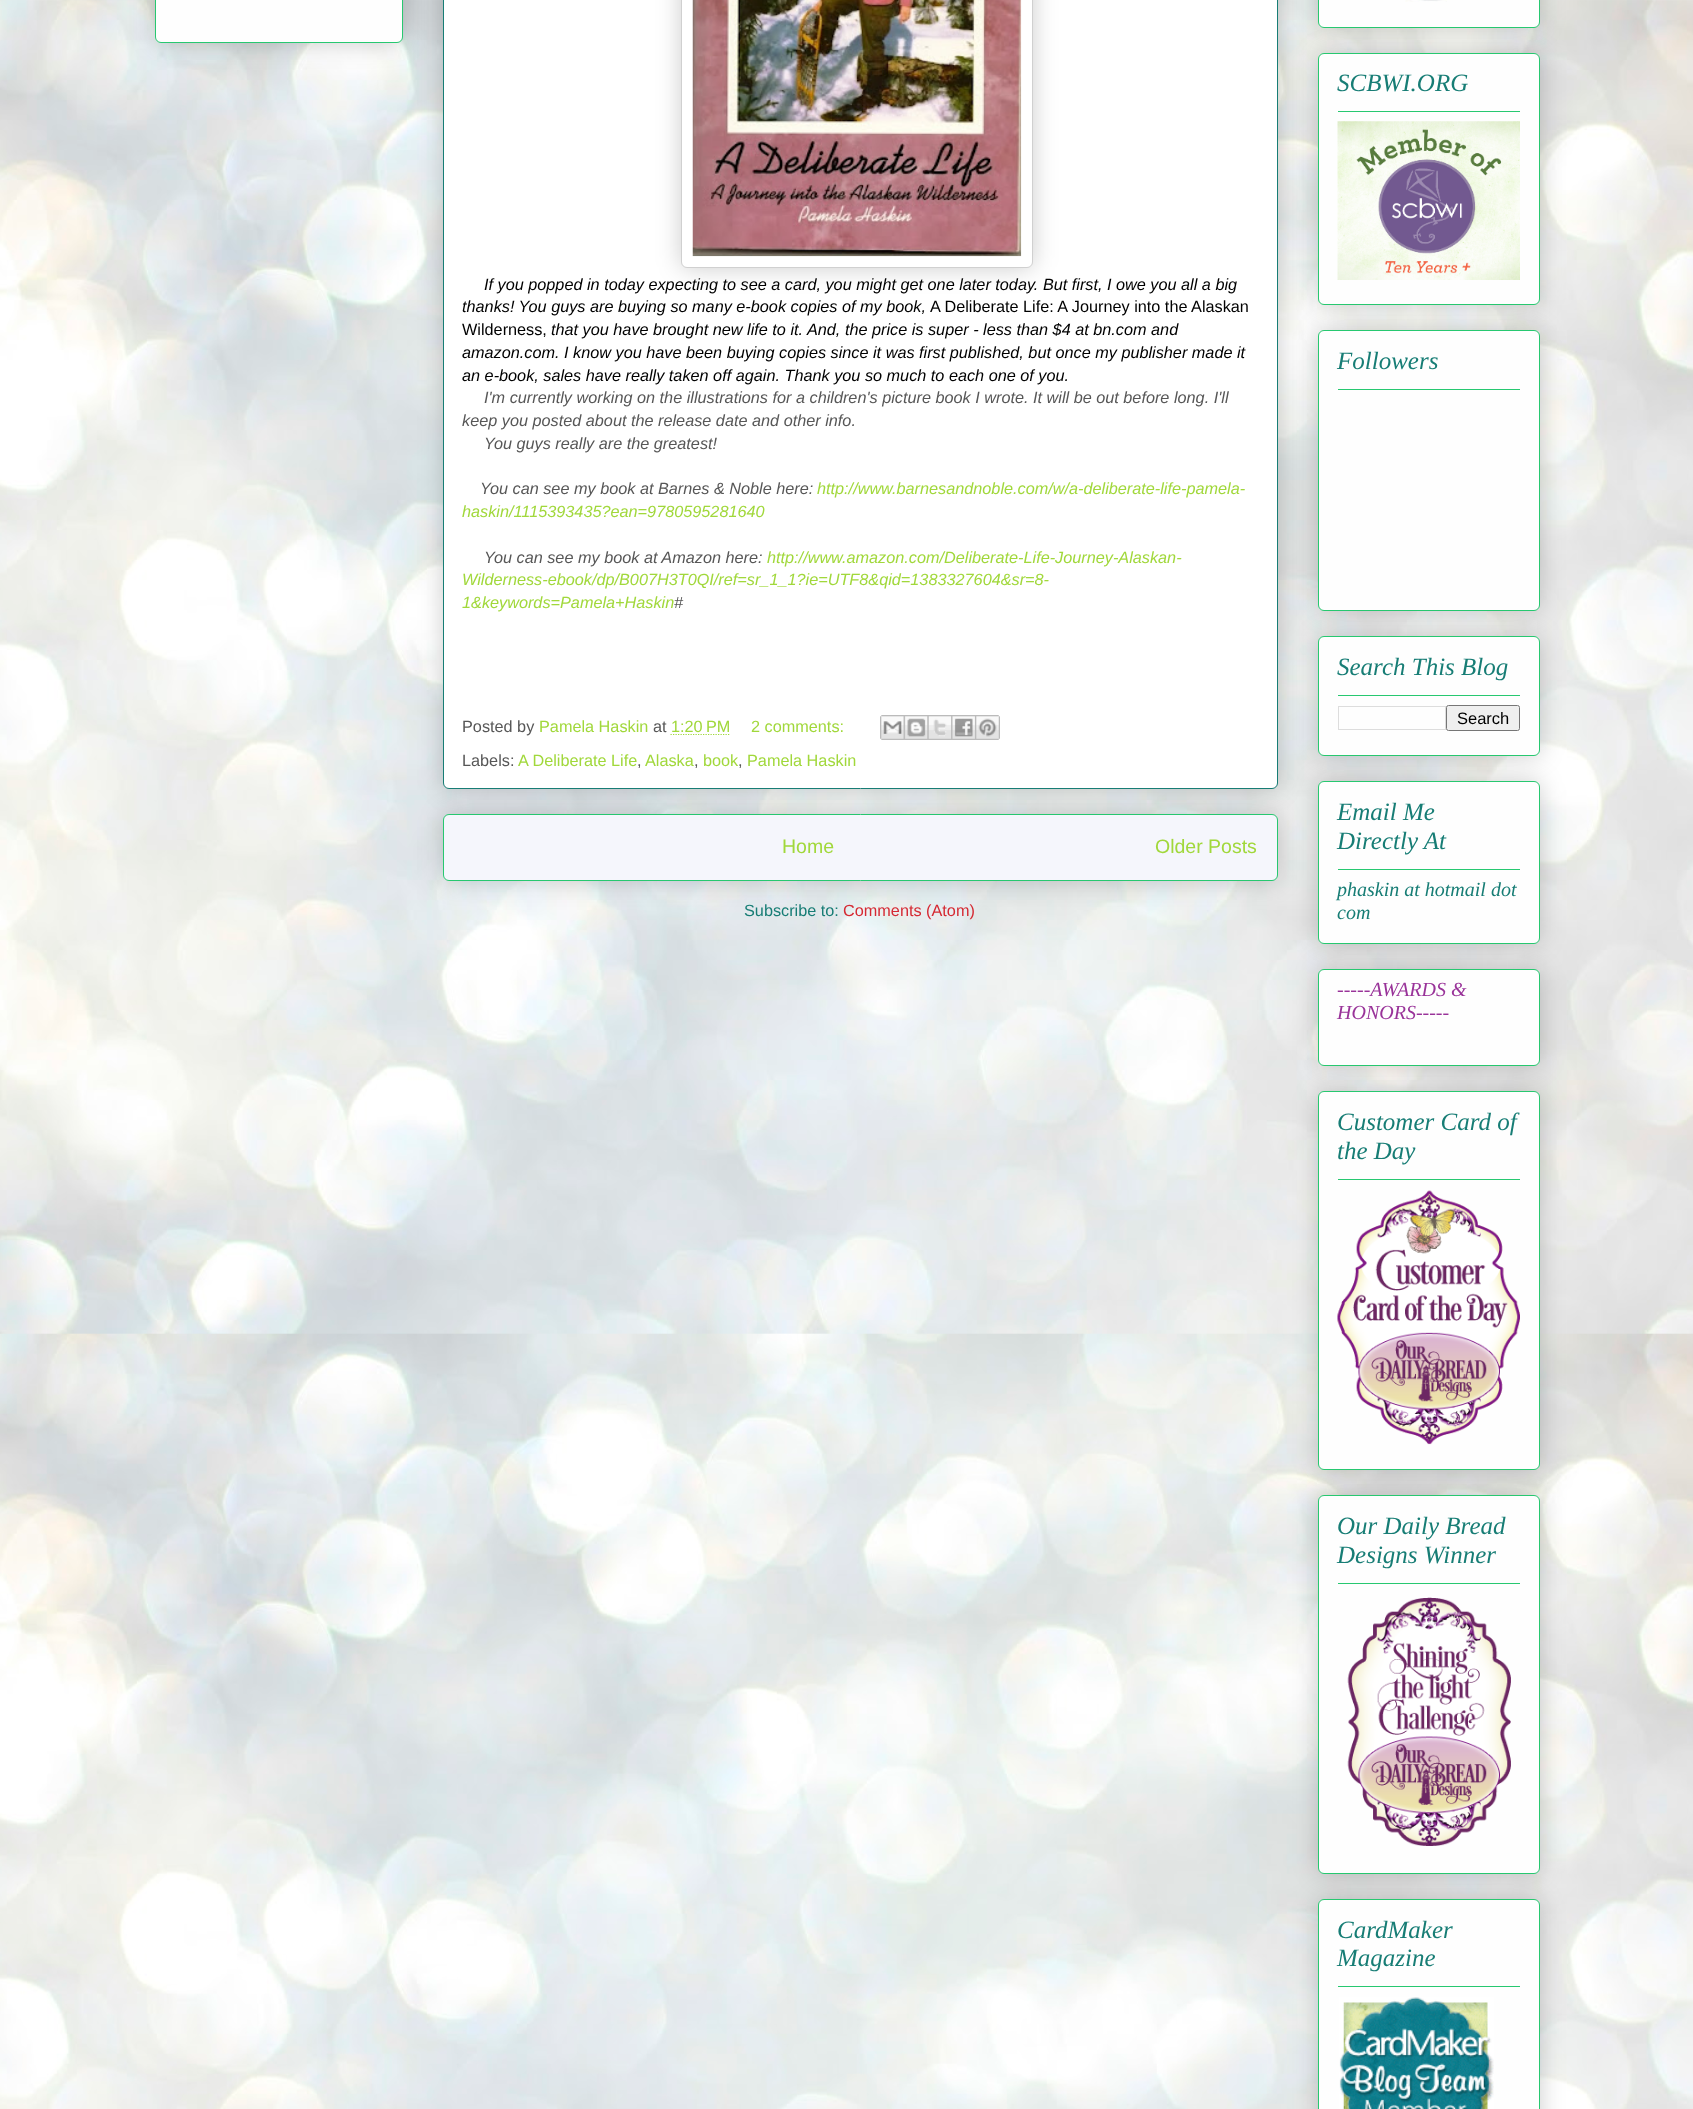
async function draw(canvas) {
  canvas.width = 1693;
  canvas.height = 2109;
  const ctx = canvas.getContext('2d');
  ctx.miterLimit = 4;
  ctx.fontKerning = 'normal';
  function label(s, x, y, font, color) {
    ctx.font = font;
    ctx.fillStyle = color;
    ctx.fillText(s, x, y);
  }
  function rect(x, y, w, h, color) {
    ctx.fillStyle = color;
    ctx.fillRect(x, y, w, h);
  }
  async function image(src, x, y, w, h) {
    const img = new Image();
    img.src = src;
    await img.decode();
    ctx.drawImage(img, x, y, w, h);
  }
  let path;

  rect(0, 0, 1693, 2109, '#fff');
  await image('assets/img1.png', 0, 0, 1693, 2109);
  ctx.fillStyle = '#00000033';
  ctx.filter = 'blur(12.5px)';
  ctx.beginPath();
  ctx.roundRect(155, -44, 248, 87, 6);
  ctx.fill();
  ctx.filter = 'none';
  ctx.fillStyle = '#fefefe';
  ctx.beginPath();
  ctx.roundRect(155.5, -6.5, 247, 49, 5.5);
  ctx.fill();
  ctx.strokeStyle = '#27c870';
  ctx.stroke();
  ctx.fillStyle = '#00000033';
  ctx.filter = 'blur(12.5px)';
  ctx.beginPath();
  ctx.roundRect(443, 814, 835, 67, 6);
  ctx.fill();
  ctx.filter = 'none';
  ctx.fillStyle = '#f5f6fc';
  ctx.beginPath();
  ctx.roundRect(443.5, 814.5, 834, 66, 5.5);
  ctx.fill();
  ctx.stroke();
  ctx.fillStyle = '#00000033';
  ctx.filter = 'blur(12.5px)';
  ctx.beginPath();
  ctx.roundRect(443, -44, 835, 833, 6);
  ctx.fill();
  ctx.filter = 'none';
  ctx.fillStyle = '#fff';
  ctx.beginPath();
  ctx.roundRect(443.5, -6.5, 834, 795, 5.5);
  ctx.fill();
  ctx.strokeStyle = '#177d75';
  ctx.stroke();
  ctx.fillStyle = '#00000033';
  ctx.filter = 'blur(12.5px)';
  ctx.beginPath();
  ctx.roundRect(681, -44, 352, 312, 6);
  ctx.fill();
  ctx.filter = 'none';
  ctx.fillStyle = '#fff';
  ctx.beginPath();
  ctx.roundRect(681.5, -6.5, 351, 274, 5.5);
  ctx.fill();
  ctx.strokeStyle = '#d0d0d0';
  ctx.stroke();
  await image('assets/img2.png', 692, 0, 330, 257);
  label('If you popped in today expecting to see a card, you might get one later today. But first, I owe you all a big', 484, 290, 'italic 16.25px Liberation Sans', '#000');
  label('thanks! You guys are buying so many e-book copies of my book,', 462, 312, 'italic 16.25px Liberation Sans', '#000');
  label('A Deliberate Life: A Journey into the Alaskan', 930, 312, '16.25px Liberation Sans', '#000');
  label('Wilderness,', 462, 335, '16.25px Liberation Sans', '#000');
  label('that you have brought new life to it. And, the price is super - less than $4 at bn.com and', 551, 335, 'italic 16.25px Liberation Sans', '#000');
  label('amazon.com. I know you have been buying copies since it was first published, but once my publisher made it', 462, 358, 'italic 16.25px Liberation Sans', '#000');
  label('an e-book, sales have really taken off again. Thank you so much to each one of you.', 462, 381, 'italic 16.25px Liberation Sans', '#000');
  label('I\'m currently working on the illustrations for a children\'s picture book I wrote. It will be out before long. I\'ll', 484, 403, 'italic 16.25px Liberation Sans', '#575757');
  label('keep you posted about the release date and other info.', 462, 426, 'italic 16.25px Liberation Sans', '#575757');
  label('You guys really are the greatest!', 484, 449, 'italic 16.25px Liberation Sans', '#575757');
  label('You can see my book at Barnes & Noble here:', 480, 494, 'italic 16.25px Liberation Sans', '#575757');
  label('http://www.barnesandnoble.com/w/a-deliberate-life-pamela-', 817, 494, 'italic 16.25px Liberation Sans', '#a1d83b');
  label('haskin/1115393435?ean=9780595281640', 462, 517, 'italic 16.25px Liberation Sans', '#a1d83b');
  label('You can see my book at Amazon here:', 484, 563, 'italic 16.25px Liberation Sans', '#575757');
  label('http://www.amazon.com/Deliberate-Life-Journey-Alaskan-', 767, 563, 'italic 16.25px Liberation Sans', '#a1d83b');
  label('Wilderness-ebook/dp/B007H3T0QI/ref=sr_1_1?ie=UTF8&qid=1383327604&sr=8-', 462, 585, 'italic 16.25px Liberation Sans', '#a1d83b');
  label('1&keywords=Pamela+Haskin', 462, 608, 'italic 16.25px Liberation Sans', '#a1d83b');
  label('#', 674, 608, 'italic 16.25px Liberation Sans', '#575757');
  label('Posted by', 462, 732, '16.25px Liberation Sans', '#575757');
  label('Pamela Haskin', 539, 732, '16.25px Liberation Sans', '#a1d83b');
  label('at', 653, 732, '16.25px Liberation Sans', '#575757');
  label('1:20 PM', 671, 732, '16.25px Liberation Sans', '#a1d83b');
  path = new Path2D('M670.5 734.5H730');
  ctx.strokeStyle = '#a1d83b';
  ctx.lineWidth = 1.2;
  ctx.setLineDash([1.25, 1.25]);
  ctx.stroke(path);
  label('2 comments:', 751, 732, '16.25px Liberation Sans', '#a1d83b');
  await image('assets/img3.png', 880, 715, 24, 25);
  await image('assets/img4.png', 903, 715, 25, 25);
  await image('assets/img5.png', 927, 715, 25, 25);
  await image('assets/img6.png', 951, 715, 24, 25);
  await image('assets/img7.png', 975, 715, 25, 25);
  label('Labels:', 462, 766, '16.25px Liberation Sans', '#575757');
  label('A Deliberate Life', 518, 766, '16.25px Liberation Sans', '#a1d83b');
  label(',', 637, 766, '16.25px Liberation Sans', '#575757');
  label('Alaska', 645, 766, '16.25px Liberation Sans', '#a1d83b');
  label(',', 694, 766, '16.25px Liberation Sans', '#575757');
  label('book', 703, 766, '16.25px Liberation Sans', '#a1d83b');
  label(',', 738, 766, '16.25px Liberation Sans', '#575757');
  label('Pamela Haskin', 747, 766, '16.25px Liberation Sans', '#a1d83b');
  label('Home', 782, 853, '19.5px Liberation Sans', '#a1d83b');
  label('Older Posts', 1155, 853, '19.5px Liberation Sans', '#a1d83b');
  label('Subscribe to:', 744, 916, '16.25px Liberation Sans', '#177d75');
  label('Comments (Atom)', 843, 916, '16.25px Liberation Sans', '#d52a33');
  ctx.fillStyle = '#00000033';
  ctx.filter = 'blur(12.5px)';
  ctx.beginPath();
  ctx.roundRect(1318, -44, 222, 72, 6);
  ctx.fill();
  ctx.filter = 'none';
  ctx.fillStyle = '#fefefe';
  ctx.beginPath();
  ctx.roundRect(1318.5, -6.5, 221, 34, 5.5);
  ctx.fill();
  ctx.strokeStyle = '#27c870';
  ctx.lineWidth = 1;
  ctx.setLineDash([]);
  ctx.stroke();
  await image('assets/img8.png', 1405, 0, 42, 2);
  ctx.fillStyle = '#00000033';
  ctx.filter = 'blur(12.5px)';
  ctx.beginPath();
  ctx.roundRect(1318, 53, 222, 252, 6);
  ctx.fill();
  ctx.filter = 'none';
  ctx.fillStyle = '#fefefe';
  ctx.beginPath();
  ctx.roundRect(1318.5, 53.5, 221, 251, 5.5);
  ctx.fill();
  ctx.stroke();
  label('SCBWI.ORG', 1337, 91, 'italic 25px Liberation Serif', '#177d75');
  rect(1338, 111, 182, 1, '#27c870');
  await image('assets/img9.png', 1337, 121, 183, 159);
  ctx.fillStyle = '#00000033';
  ctx.filter = 'blur(12.5px)';
  ctx.beginPath();
  ctx.roundRect(1318, 330, 222, 281, 6);
  ctx.fill();
  ctx.filter = 'none';
  ctx.fillStyle = '#fefefe';
  ctx.beginPath();
  ctx.roundRect(1318.5, 330.5, 221, 280, 5.5);
  ctx.fill();
  ctx.stroke();
  label('Followers', 1337, 369, 'italic 25px Liberation Serif', '#177d75');
  rect(1338, 389, 182, 1, '#27c870');
  ctx.fillStyle = '#00000033';
  ctx.filter = 'blur(12.5px)';
  ctx.beginPath();
  ctx.roundRect(1318, 636, 222, 120, 6);
  ctx.fill();
  ctx.filter = 'none';
  ctx.fillStyle = '#fefefe';
  ctx.beginPath();
  ctx.roundRect(1318.5, 636.5, 221, 119, 5.5);
  ctx.fill();
  ctx.stroke();
  label('Search This Blog', 1337, 675, 'italic 25px Liberation Serif', '#177d75');
  rect(1338, 695, 182, 1, '#27c870');
  ctx.strokeStyle = '#ddd';
  ctx.strokeRect(1338.5, 706.5, 107, 23);
  ctx.fillStyle = '#efefef';
  ctx.beginPath();
  ctx.roundRect(1446.5, 705.5, 73, 25, 2);
  ctx.fill();
  ctx.strokeStyle = '#767676';
  ctx.stroke();
  label('Search', 1457, 724, '16.5px Liberation Sans', '#000');
  ctx.fillStyle = '#00000033';
  ctx.filter = 'blur(12.5px)';
  ctx.beginPath();
  ctx.roundRect(1318, 781, 222, 163, 6);
  ctx.fill();
  ctx.filter = 'none';
  ctx.fillStyle = '#fefefe';
  ctx.beginPath();
  ctx.roundRect(1318.5, 781.5, 221, 162, 5.5);
  ctx.fill();
  ctx.strokeStyle = '#27c870';
  ctx.stroke();
  label('Email Me', 1337, 820, 'italic 25px Liberation Serif', '#177d75');
  label('Directly At', 1337, 849, 'italic 25px Liberation Serif', '#177d75');
  rect(1338, 869, 182, 1, '#27c870');
  label('phaskin at hotmail dot', 1337, 896, 'italic 20px Liberation Serif', '#177d75');
  label('com', 1337, 919, 'italic 20px Liberation Serif', '#177d75');
  ctx.fillStyle = '#00000033';
  ctx.filter = 'blur(12.5px)';
  ctx.beginPath();
  ctx.roundRect(1318, 969, 222, 97, 6);
  ctx.fill();
  ctx.filter = 'none';
  ctx.fillStyle = '#fefefe';
  ctx.beginPath();
  ctx.roundRect(1318.5, 969.5, 221, 96, 5.5);
  ctx.fill();
  ctx.stroke();
  label('-----AWARDS &', 1337, 996, 'italic 20px Liberation Serif', '#939');
  label('HONORS-----', 1337, 1019, 'italic 20px Liberation Serif', '#939');
  ctx.fillStyle = '#00000033';
  ctx.filter = 'blur(12.5px)';
  ctx.beginPath();
  ctx.roundRect(1318, 1091, 222, 379, 6);
  ctx.fill();
  ctx.filter = 'none';
  ctx.fillStyle = '#fefefe';
  ctx.beginPath();
  ctx.roundRect(1318.5, 1091.5, 221, 378, 5.5);
  ctx.fill();
  ctx.stroke();
  label('Customer Card of', 1337, 1130, 'italic 25px Liberation Serif', '#177d75');
  label('the Day', 1337, 1159, 'italic 25px Liberation Serif', '#177d75');
  rect(1338, 1179, 182, 1, '#27c870');
  await image('assets/img10.png', 1337, 1190, 183, 255);
  ctx.fillStyle = '#00000033';
  ctx.filter = 'blur(12.5px)';
  ctx.beginPath();
  ctx.roundRect(1318, 1495, 222, 379, 6);
  ctx.fill();
  ctx.filter = 'none';
  ctx.fillStyle = '#fefefe';
  ctx.beginPath();
  ctx.roundRect(1318.5, 1495.5, 221, 378, 5.5);
  ctx.fill();
  ctx.stroke();
  label('Our Daily Bread', 1337, 1534, 'italic 25px Liberation Serif', '#177d75');
  label('Designs Winner', 1337, 1563, 'italic 25px Liberation Serif', '#177d75');
  rect(1338, 1583, 182, 1, '#27c870');
  await image('assets/img11.png', 1347, 1597, 164, 249);
  ctx.fillStyle = '#00000033';
  ctx.filter = 'blur(12.5px)';
  ctx.beginPath();
  ctx.roundRect(1318, 1899, 222, 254, 6);
  ctx.fill();
  ctx.filter = 'none';
  ctx.fillStyle = '#fefefe';
  ctx.beginPath();
  ctx.roundRect(1318.5, 1899.5, 221, 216, 5.5);
  ctx.fill();
  ctx.stroke();
  label('CardMaker', 1337, 1938, 'italic 25px Liberation Serif', '#177d75');
  label('Magazine', 1337, 1966, 'italic 25px Liberation Serif', '#177d75');
  rect(1338, 1986, 182, 1, '#27c870');
  await image('assets/img12.png', 1339, 1997, 155, 112);
}

draw(document.querySelector('canvas'));
